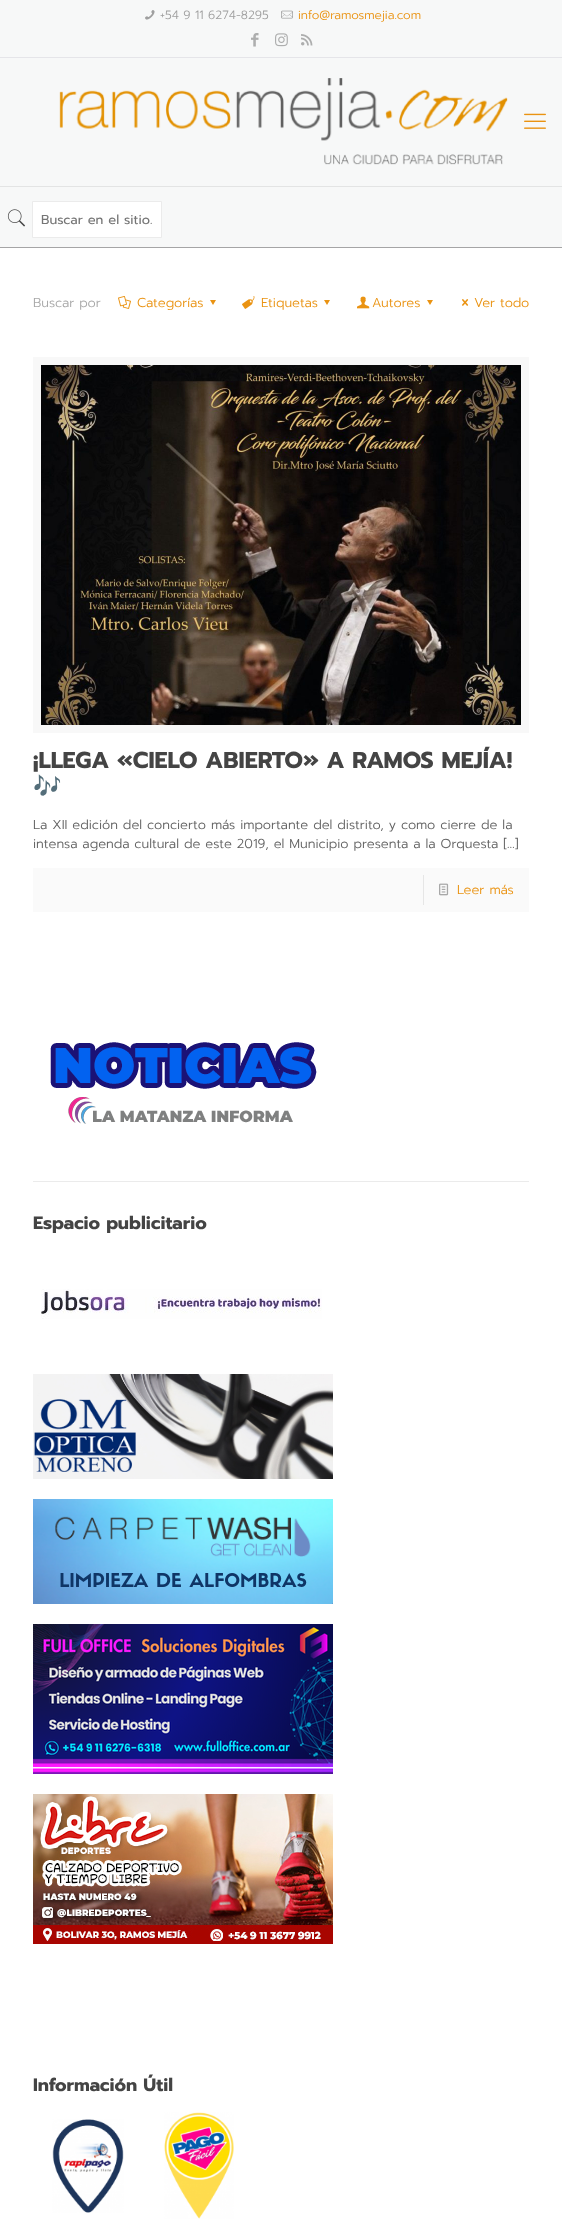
async function draw(canvas) {
  canvas.width = 562;
  canvas.height = 2231;
  const ctx = canvas.getContext('2d');
  ctx.miterLimit = 4;
  ctx.fontKerning = 'normal';
  function label(s, x, y, font, color) {
    ctx.font = font;
    ctx.fillStyle = color;
    ctx.fillText(s, x, y);
  }
  function rect(x, y, w, h, color) {
    ctx.fillStyle = color;
    ctx.fillRect(x, y, w, h);
  }
  async function image(src, x, y, w, h) {
    const img = new Image();
    img.src = src;
    await img.decode();
    ctx.drawImage(img, x, y, w, h);
  }
  let path;

  rect(0, 0, 562, 2231, '#fff');
  rect(0, 0, 562, 57, '#f7f8f8');
  rect(0, 57, 562, 1, '#e5e5e9');
  await image('assets/img1.png', 145, 10, 10, 10);
  label('+54 9 11 6274-8295', 160, 19, '300 12px Prompt', '#9f9f9f');
  await image('assets/img2.png', 281, 10, 12, 9);
  label('info@ramosmejia.com', 298, 19, '300 12px Prompt', '#ea9312');
  await image('assets/img3.png', 251, 33, 8, 14);
  await image('assets/img4.png', 275, 33, 13, 14);
  await image('assets/img5.png', 301, 34, 12, 12);
  rect(0, 58, 562, 189, '#f7f8f8');
  rect(0, 247, 562, 1, '#a5a5a6');
  rect(0, 186, 562, 1, '#e3e4e4');
  await image('assets/img6.png', 59, 78, 449, 87);
  await image('assets/img7.png', 524, 113, 22, 16);
  await image('assets/img8.png', 7, 209, 19, 18);
  ctx.fillStyle = '#fff';
  ctx.beginPath();
  ctx.rect(32.5, 201.5, 129, 36);
  ctx.fill();
  ctx.strokeStyle = '#ebebeb';
  ctx.stroke();
  label('Buscar en el sitio.', 41, 224, '13px Prompt', '#757575');
  label('Buscar por', 33, 307, '300 13px Prompt', '#a8a8a8');
  await image('assets/img9.png', 118, 296, 13, 13);
  label('Categorías', 137, 307, '300 13px Prompt', '#ea9312');
  path = new Path2D('M216 300L213 305L210 300Z');
  ctx.fill(path);
  await image('assets/img10.png', 242, 296, 13, 13);
  label('Etiquetas', 261, 307, '300 13px Prompt', '#ea9312');
  path = new Path2D('M330 300L327 305L324 300Z');
  ctx.fill(path);
  await image('assets/img11.png', 357, 296, 13, 13);
  label('Autores', 372, 307, '300 13px Prompt', '#ea9312');
  path = new Path2D('M433 300L430 305L427 300Z');
  ctx.fill(path);
  await image('assets/img12.png', 462, 299, 7, 7);
  label('Ver todo', 474, 307, '300 13px Prompt', '#ea9312');
  ctx.strokeStyle = '#f8f8f8';
  ctx.lineWidth = 8;
  ctx.strokeRect(37, 361, 488, 368);
  await image('assets/img13.png', 41, 365, 480, 360);
  label('¡LLEGA «CIELO ABIERTO» A RAMOS MEJÍA!', 33, 768, 'bold 23px Prompt', '#444');
  label('🎶', 33, 794, 'bold 23px Noto Color Emoji', '#444');
  label('La XII edición del concierto más importante del distrito, y como cierre de la', 33, 829, '300 13px Prompt', '#626262');
  label('intensa agenda cultural de este 2019, el Municipio presenta a la Orquesta […]', 33, 848, '300 13px Prompt', '#626262');
  rect(33, 868, 496, 44, '#fafafa');
  rect(423, 875, 1, 30, '#e6e6e6');
  await image('assets/img14.png', 439, 883, 10, 13);
  label('Leer más', 457, 894, '300 13px Prompt', '#ea9312');
  await image('assets/img15.png', 50, 1042, 267, 82);
  rect(33, 1181, 496, 1, '#ebebeb');
  label('Espacio publicitario', 33, 1229, 'bold 18px Prompt', '#444');
  await image('assets/img16.png', 41, 1289, 281, 30);
  await image('assets/img17.png', 33, 1374, 300, 105);
  await image('assets/img18.png', 33, 1499, 300, 105);
  await image('assets/img19.png', 33, 1624, 300, 150);
  await image('assets/img20.png', 33, 1794, 300, 150);
  label('Información Útil', 33, 2091, 'bold 18px Prompt', '#444');
  await image('assets/img21.png', 52, 2119, 72, 94);
  await image('assets/img22.png', 164, 2112, 70, 107);
}

draw(document.querySelector('canvas'));
